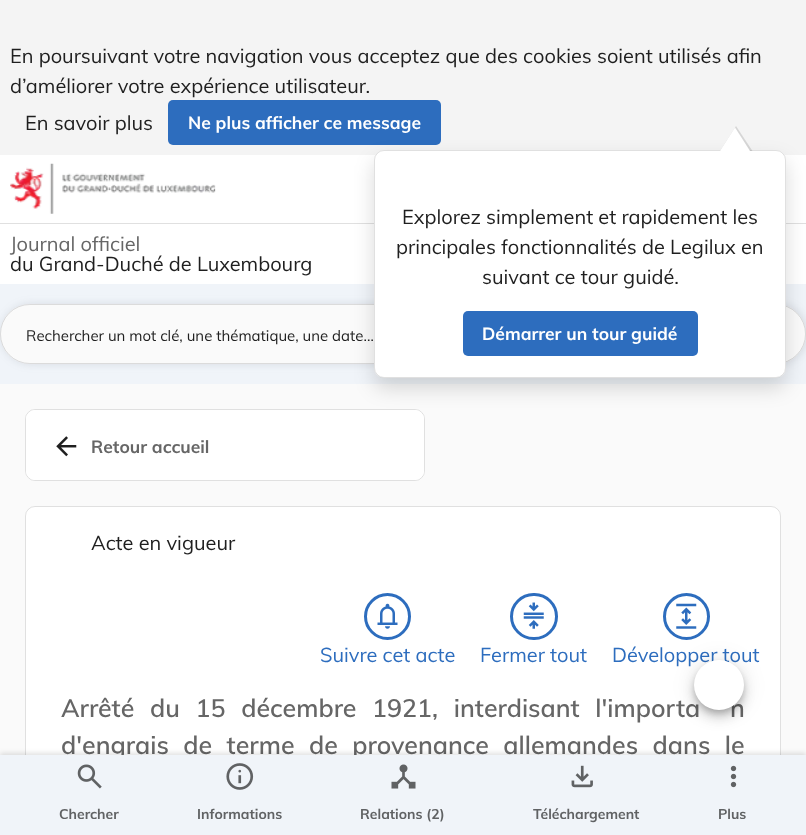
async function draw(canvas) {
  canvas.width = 806;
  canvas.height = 835;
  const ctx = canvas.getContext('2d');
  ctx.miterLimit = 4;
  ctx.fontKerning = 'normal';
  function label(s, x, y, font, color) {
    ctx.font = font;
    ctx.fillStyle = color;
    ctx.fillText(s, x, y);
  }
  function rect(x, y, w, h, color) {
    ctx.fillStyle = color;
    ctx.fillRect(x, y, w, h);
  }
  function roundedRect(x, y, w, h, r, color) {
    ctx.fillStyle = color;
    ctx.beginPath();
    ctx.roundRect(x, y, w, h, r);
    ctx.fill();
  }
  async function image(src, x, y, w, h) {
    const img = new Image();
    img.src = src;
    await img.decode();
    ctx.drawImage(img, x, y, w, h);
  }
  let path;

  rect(0, 0, 806, 835, '#fafafa');
  rect(0, 155, 806, 129, '#fff');
  rect(0, 0, 806, 155, '#f4f4f4');
  label('En poursuivant votre navigation vous acceptez que des cookies soient utilisés afin', 10, 63, '20px Muli', '#1f1f1f');
  label('d’améliorer votre expérience utilisateur.', 10, 93, '20px Muli', '#1f1f1f');
  label('En savoir plus', 25, 130, '20px Muli', '#1f1f1f');
  roundedRect(168, 100, 273, 45, 5, '#2d6dbe');
  label('Ne plus afficher ce message', 188, 129, 'bold 17.5px Muli', '#fff');
  label('Journal officiel', 10, 251, '20px Muli', '#666');
  label('du Grand-Duché de Luxembourg', 10, 271, '20px Muli', '#1f1f1f');
  rect(0, 223, 806, 1, '#e0e0e0');
  await image('assets/img1.png', 10, 163, 206, 51);
  rect(0, 284, 806, 100, '#f0f4f9');
  ctx.fillStyle = '#60617029';
  ctx.filter = 'blur(4.5px)';
  ctx.beginPath();
  ctx.roundRect(1, 304, 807, 60, 30);
  ctx.fill();
  ctx.filter = 'none';
  roundedRect(0, 304, 806, 60, 30, '#fafafa');
  ctx.beginPath();
  ctx.roundRect(0.5, 304.5, 805, 59, 29.5);
  ctx.strokeStyle = '#0000001f';
  ctx.stroke();
  roundedRect(25, 409, 400, 72, 10, '#fff');
  ctx.beginPath();
  ctx.roundRect(25.5, 409.5, 399, 71, 9.5);
  ctx.stroke();
  roundedRect(26, 410, 398, 70, 9, '#fff');
  ctx.fillStyle = '#00000026';
  ctx.filter = 'blur(10px)';
  ctx.beginPath();
  ctx.roundRect(374, 160, 412, 228, 10);
  ctx.fill();
  ctx.filter = 'none';
  roundedRect(374, 150, 412, 228, 10, '#fff');
  ctx.beginPath();
  ctx.roundRect(374.5, 150.5, 411, 227, 9.5);
  ctx.stroke();
  ctx.fillStyle = '#0000001f';
  path = new Path2D('M752.5 151H720L736 126Z');
  ctx.fill(path);
  ctx.fillStyle = '#fff';
  path = new Path2D('M751 152.5H719L735 127.5Z');
  ctx.fill(path);
  label('Explorez simplement et rapidement les', 402, 224, '20px Muli', '#1f1f1f');
  label('principales fonctionnalités de Legilux en', 396, 254, '20px Muli', '#1f1f1f');
  label('suivant ce tour guidé.', 482, 284, '20px Muli', '#1f1f1f');
  roundedRect(463, 311, 235, 45, 5, '#2d6dbe');
  label('Démarrer un tour guidé', 482, 340, 'bold 17.5px Muli', '#fff');
  label('Rechercher un mot clé, une thématique, une date…', 26, 341, '15px Muli', '#1f1f1f');
  await image('assets/img2.png', 56, 436, 21, 21);
  label('Retour accueil', 91, 453, 'bold 17.5px Muli', '#666');
  roundedRect(25, 506, 756, 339, 10, '#fff');
  ctx.beginPath();
  ctx.roundRect(25.5, 506.5, 755, 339, 9.5);
  ctx.stroke();
  label('Acte en vigueur', 91, 550, '20px Muli', '#1f1f1f');
  ctx.beginPath();
  ctx.arc(387.5, 616.5, 22, 0, 2 * Math.PI);
  ctx.strokeStyle = '#2d6dbe';
  ctx.lineWidth = 3;
  ctx.stroke();
  await image('assets/img3.png', 377, 603, 21, 26);
  label('Suivre cet acte', 320, 662, '20px Muli', '#2d6dbe');
  ctx.beginPath();
  ctx.roundRect(511.5, 594.5, 45, 44, 22);
  ctx.stroke();
  await image('assets/img4.png', 523, 602, 21, 27);
  label('Fermer tout', 480, 662, '20px Muli', '#2d6dbe');
  ctx.beginPath();
  ctx.arc(686.5, 616.5, 22, 0, 2 * Math.PI);
  ctx.stroke();
  await image('assets/img5.png', 676, 603, 21, 26);
  label('Développer tout', 612, 662, '20px Muli', '#2d6dbe');
  ctx.wordSpacing = '9px';
  label('Arrêté du 15 décembre 1921, interdisant l\'importa', 61, 717, '600 25px Muli', '#666');
  label('n', 730, 717, '600 25px Muli', '#666');
  ctx.wordSpacing = '7.75px';
  label('d\'engrais de terme de provenance allemandes dans le', 61, 754, '600 25px Muli', '#666');
  ctx.fillStyle = '#0000001f';
  ctx.filter = 'blur(11px)';
  ctx.beginPath();
  ctx.roundRect(694, 661, 50, 50, 25);
  ctx.fill();
  ctx.filter = 'none';
  ctx.fillStyle = '#00000024';
  ctx.filter = 'blur(6px)';
  ctx.beginPath();
  ctx.roundRect(694, 668, 50, 50, 25);
  ctx.fill();
  ctx.filter = 'none';
  ctx.fillStyle = '#00000033';
  ctx.filter = 'blur(3px)';
  ctx.beginPath();
  ctx.roundRect(695, 665, 48, 48, 24);
  ctx.fill();
  ctx.filter = 'none';
  ctx.fillStyle = '#fff';
  ctx.beginPath();
  ctx.arc(719, 685, 25, 0, 2 * Math.PI);
  ctx.fill();
  ctx.fillStyle = '#0000001f';
  ctx.filter = 'blur(2.5px)';
  ctx.beginPath();
  ctx.rect(0, 753, 806, 80);
  ctx.fill();
  ctx.filter = 'none';
  rect(0, 755, 806, 80, '#f0f4f9');
  await image('assets/img6.png', 77, 764, 25, 25);
  ctx.wordSpacing = '0px';
  label('Chercher', 59, 819, 'bold 14px Muli', '#606264');
  await image('assets/img7.png', 226, 763, 28, 27);
  label('Informations', 197, 819, 'bold 14px Muli', '#606264');
  await image('assets/img8.png', 391, 764, 25, 25);
  label('Relations (2)', 360, 819, 'bold 14px Muli', '#606264');
  await image('assets/img9.png', 571, 765, 22, 23);
  label('Téléchargement', 533, 819, 'bold 14px Muli', '#606264');
  await image('assets/img10.png', 730, 765, 7, 23);
  label('Plus', 718, 819, 'bold 14px Muli', '#606264');
}

draw(document.querySelector('canvas'));
